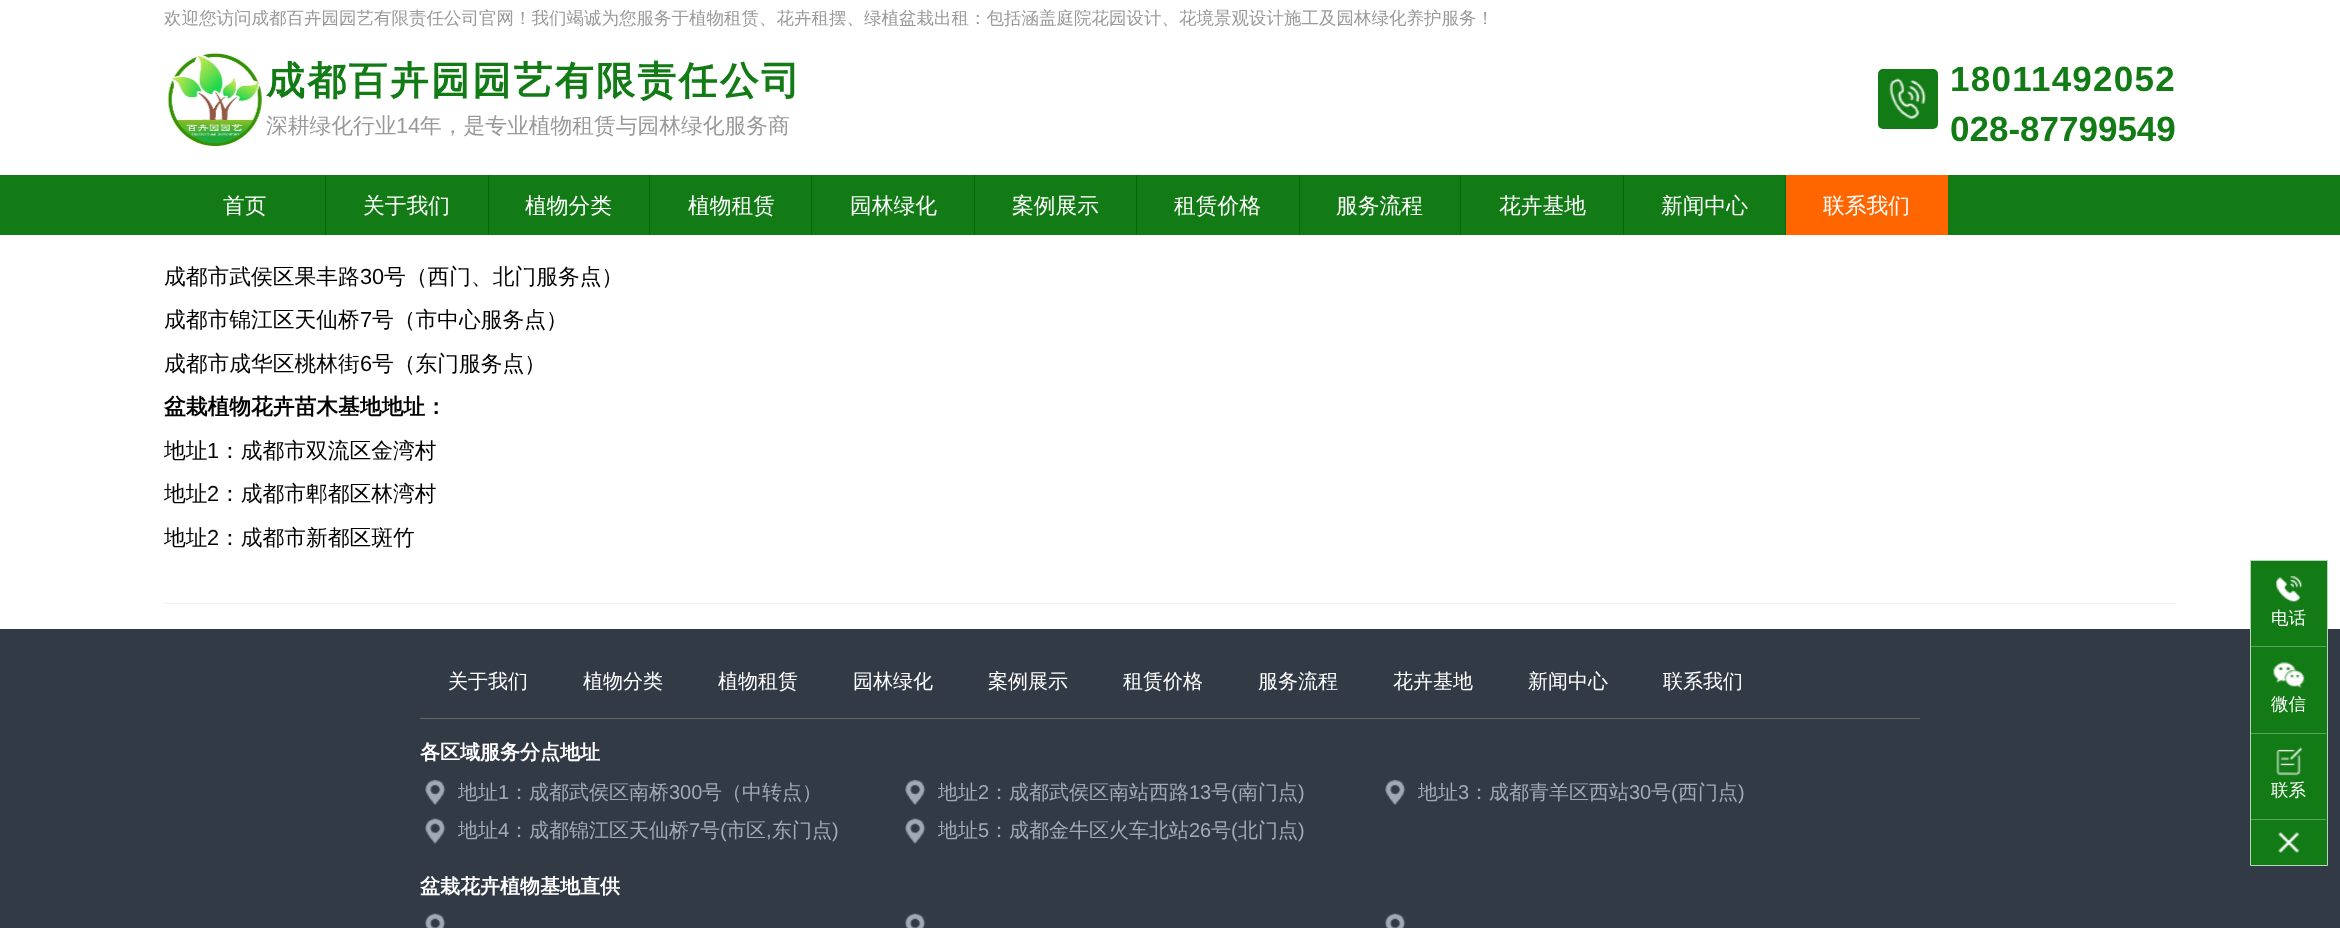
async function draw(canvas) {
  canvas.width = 2340;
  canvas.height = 928;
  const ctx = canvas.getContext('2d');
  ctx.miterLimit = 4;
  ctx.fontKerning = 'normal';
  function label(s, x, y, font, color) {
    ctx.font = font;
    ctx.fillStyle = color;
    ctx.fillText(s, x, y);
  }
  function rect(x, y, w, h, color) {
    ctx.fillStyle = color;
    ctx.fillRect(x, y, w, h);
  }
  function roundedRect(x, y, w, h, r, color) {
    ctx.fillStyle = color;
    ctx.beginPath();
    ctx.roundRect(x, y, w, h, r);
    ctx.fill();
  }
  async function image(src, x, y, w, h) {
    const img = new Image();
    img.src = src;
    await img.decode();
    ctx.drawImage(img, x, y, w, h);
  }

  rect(0, 0, 2340, 928, '#fff');
  label('欢迎您访问成都百卉园园艺有限责任公司官网！我们竭诚为您服务于植物租赁、花卉租摆、绿植盆栽出租：包括涵盖庭院花园设计、花境景观设计施工及园林绿化养护服务！', 164, 24, '500 17.5px WenQuanYi Zen Hei', '#999');
  await image('assets/img1.png', 167, 52, 96, 95);
  ctx.letterSpacing = '2.5px';
  label('成都百卉园园艺有限责任公司', 266, 94, 'bold 38.75px WenQuanYi Zen Hei', '#137b16');
  ctx.letterSpacing = '0px';
  label('深耕绿化行业', 266, 133, '500 21.75px WenQuanYi Zen Hei', '#999');
  label('14', 396, 133, '21.75px Liberation Sans', '#999');
  label('年，是专业植物租赁与园林绿化服务商', 420, 133, '500 21.75px WenQuanYi Zen Hei', '#999');
  roundedRect(1878, 69, 60, 60, 5, '#137b16');
  await image('assets/img2.png', 1889, 78, 37, 41);
  ctx.letterSpacing = '1.25px';
  label('18011492052', 1950, 91, 'bold 35px Liberation Sans', '#137b16');
  ctx.letterSpacing = '0px';
  label('028-87799549', 1950, 141, 'bold 35px Liberation Sans', '#137b16');
  rect(0, 175, 2340, 60, '#137b16');
  label('首页', 223, 213, '500 21.75px WenQuanYi Zen Hei', '#fff');
  rect(325, 175, 1, 60, '#046807');
  label('关于我们', 363, 213, '500 21.75px WenQuanYi Zen Hei', '#fff');
  rect(488, 175, 1, 60, '#046807');
  label('植物分类', 525, 213, '500 21.75px WenQuanYi Zen Hei', '#fff');
  rect(649, 175, 1, 60, '#046807');
  label('植物租赁', 688, 213, '500 21.75px WenQuanYi Zen Hei', '#fff');
  rect(811, 175, 1, 60, '#046807');
  label('园林绿化', 850, 213, '500 21.75px WenQuanYi Zen Hei', '#fff');
  rect(974, 175, 1, 60, '#046807');
  label('案例展示', 1012, 213, '500 21.75px WenQuanYi Zen Hei', '#fff');
  rect(1136, 175, 1, 60, '#046807');
  label('租赁价格', 1174, 213, '500 21.75px WenQuanYi Zen Hei', '#fff');
  rect(1299, 175, 1, 60, '#046807');
  label('服务流程', 1336, 213, '500 21.75px WenQuanYi Zen Hei', '#fff');
  rect(1460, 175, 1, 60, '#046807');
  label('花卉基地', 1499, 213, '500 21.75px WenQuanYi Zen Hei', '#fff');
  rect(1623, 175, 1, 60, '#046807');
  label('新闻中心', 1661, 213, '500 21.75px WenQuanYi Zen Hei', '#fff');
  rect(1785, 175, 1, 60, '#046807');
  rect(1786, 175, 162, 60, '#f60');
  label('联系我们', 1823, 213, '500 21.75px WenQuanYi Zen Hei', '#fff');
  label('成都市武侯区果丰路', 164, 284, '500 21.75px WenQuanYi Zen Hei', '#000');
  label('30', 360, 284, '21.75px Liberation Sans', '#000');
  label('号（西门、北门服务点）', 384, 284, '500 21.75px WenQuanYi Zen Hei', '#000');
  label('成都市锦江区天仙桥', 164, 327, '500 21.75px WenQuanYi Zen Hei', '#000');
  label('7', 360, 327, '21.75px Liberation Sans', '#000');
  label('号（市中心服务点）', 372, 327, '500 21.75px WenQuanYi Zen Hei', '#000');
  label('成都市成华区桃林街', 164, 371, '500 21.75px WenQuanYi Zen Hei', '#000');
  label('6', 360, 371, '21.75px Liberation Sans', '#000');
  label('号（东门服务点）', 372, 371, '500 21.75px WenQuanYi Zen Hei', '#000');
  label('盆栽植物花卉苗木基地地址：', 164, 414, 'bold 21.75px WenQuanYi Zen Hei', '#000');
  label('地址', 164, 458, '500 21.75px WenQuanYi Zen Hei', '#000');
  label('1', 207, 458, '21.75px Liberation Sans', '#000');
  label('：成都市双流区金湾村', 219, 458, '500 21.75px WenQuanYi Zen Hei', '#000');
  label('地址', 164, 501, '500 21.75px WenQuanYi Zen Hei', '#000');
  label('2', 207, 501, '21.75px Liberation Sans', '#000');
  label('：成都市郫都区林湾村', 219, 501, '500 21.75px WenQuanYi Zen Hei', '#000');
  label('地址', 164, 545, '500 21.75px WenQuanYi Zen Hei', '#000');
  label('2', 207, 545, '21.75px Liberation Sans', '#000');
  label('：成都市新都区斑竹', 219, 545, '500 21.75px WenQuanYi Zen Hei', '#000');
  rect(164, 603, 2012, 1, '#eee');
  rect(0, 629, 2340, 299, '#323a45');
  label('关于我们', 448, 688, '500 20px WenQuanYi Zen Hei', '#fff');
  label('植物分类', 583, 688, '500 20px WenQuanYi Zen Hei', '#fff');
  label('植物租赁', 718, 688, '500 20px WenQuanYi Zen Hei', '#fff');
  label('园林绿化', 853, 688, '500 20px WenQuanYi Zen Hei', '#fff');
  label('案例展示', 988, 688, '500 20px WenQuanYi Zen Hei', '#fff');
  label('租赁价格', 1123, 688, '500 20px WenQuanYi Zen Hei', '#fff');
  label('服务流程', 1258, 688, '500 20px WenQuanYi Zen Hei', '#fff');
  label('花卉基地', 1393, 688, '500 20px WenQuanYi Zen Hei', '#fff');
  label('新闻中心', 1528, 688, '500 20px WenQuanYi Zen Hei', '#fff');
  label('联系我们', 1663, 688, '500 20px WenQuanYi Zen Hei', '#fff');
  rect(420, 718, 1500, 1, '#666');
  label('各区域服务分点地址', 420, 759, 'bold 20px WenQuanYi Zen Hei', '#fff');
  await image('assets/img3.png', 425, 779, 21, 26);
  label('地址', 458, 799, '500 20px WenQuanYi Zen Hei', '#a1abb7');
  label('1', 498, 799, '20px Liberation Sans', '#a1abb7');
  label('：成都武侯区南桥', 509, 799, '500 20px WenQuanYi Zen Hei', '#a1abb7');
  label('300', 669, 799, '20px Liberation Sans', '#a1abb7');
  label('号（中转点）', 702, 799, '500 20px WenQuanYi Zen Hei', '#a1abb7');
  await image('assets/img4.png', 905, 779, 21, 26);
  label('地址', 938, 799, '500 20px WenQuanYi Zen Hei', '#a1abb7');
  label('2', 978, 799, '20px Liberation Sans', '#a1abb7');
  label('：成都武侯区南站西路', 989, 799, '500 20px WenQuanYi Zen Hei', '#a1abb7');
  label('13', 1189, 799, '20px Liberation Sans', '#a1abb7');
  label('号', 1211, 799, '500 20px WenQuanYi Zen Hei', '#a1abb7');
  label('(', 1231, 799, '20px Liberation Sans', '#a1abb7');
  label('南门点', 1238, 799, '500 20px WenQuanYi Zen Hei', '#a1abb7');
  label(')', 1298, 799, '20px Liberation Sans', '#a1abb7');
  await image('assets/img4.png', 1385, 779, 21, 26);
  label('地址', 1418, 799, '500 20px WenQuanYi Zen Hei', '#a1abb7');
  label('3', 1458, 799, '20px Liberation Sans', '#a1abb7');
  label('：成都青羊区西站', 1469, 799, '500 20px WenQuanYi Zen Hei', '#a1abb7');
  label('30', 1629, 799, '20px Liberation Sans', '#a1abb7');
  label('号', 1651, 799, '500 20px WenQuanYi Zen Hei', '#a1abb7');
  label('(', 1671, 799, '20px Liberation Sans', '#a1abb7');
  label('西门点', 1678, 799, '500 20px WenQuanYi Zen Hei', '#a1abb7');
  label(')', 1738, 799, '20px Liberation Sans', '#a1abb7');
  await image('assets/img5.png', 425, 818, 21, 26);
  label('地址', 458, 837, '500 20px WenQuanYi Zen Hei', '#a1abb7');
  label('4', 498, 837, '20px Liberation Sans', '#a1abb7');
  label('：成都锦江区天仙桥', 509, 837, '500 20px WenQuanYi Zen Hei', '#a1abb7');
  label('7', 689, 837, '20px Liberation Sans', '#a1abb7');
  label('号', 700, 837, '500 20px WenQuanYi Zen Hei', '#a1abb7');
  label('(', 720, 837, '20px Liberation Sans', '#a1abb7');
  label('市区', 726, 837, '500 20px WenQuanYi Zen Hei', '#a1abb7');
  label(',', 766, 837, '20px Liberation Sans', '#a1abb7');
  label('东门点', 772, 837, '500 20px WenQuanYi Zen Hei', '#a1abb7');
  label(')', 832, 837, '20px Liberation Sans', '#a1abb7');
  await image('assets/img6.png', 905, 818, 21, 26);
  label('地址', 938, 837, '500 20px WenQuanYi Zen Hei', '#a1abb7');
  label('5', 978, 837, '20px Liberation Sans', '#a1abb7');
  label('：成都金牛区火车北站', 989, 837, '500 20px WenQuanYi Zen Hei', '#a1abb7');
  label('26', 1189, 837, '20px Liberation Sans', '#a1abb7');
  label('号', 1211, 837, '500 20px WenQuanYi Zen Hei', '#a1abb7');
  label('(', 1231, 837, '20px Liberation Sans', '#a1abb7');
  label('北门点', 1238, 837, '500 20px WenQuanYi Zen Hei', '#a1abb7');
  label(')', 1298, 837, '20px Liberation Sans', '#a1abb7');
  label('盆栽花卉植物基地直供', 420, 893, 'bold 20px WenQuanYi Zen Hei', '#fff');
  await image('assets/img7.png', 425, 913, 21, 15);
  await image('assets/img8.png', 905, 913, 21, 15);
  await image('assets/img8.png', 1385, 913, 21, 15);
  ctx.fillStyle = '#137b16';
  ctx.beginPath();
  ctx.rect(2250.5, 560.5, 77, 305);
  ctx.fill();
  ctx.strokeStyle = '#b8d7b9';
  ctx.stroke();
  rect(2251, 646, 75, 1, '#5aa35c');
  await image('assets/img9.png', 2276, 576, 26, 26);
  label('电话', 2271, 624, '500 17.5px WenQuanYi Zen Hei', '#fff');
  rect(2251, 733, 75, 1, '#5aa35c');
  await image('assets/img10.png', 2273, 662, 32, 26);
  label('微信', 2271, 710, '500 17.5px WenQuanYi Zen Hei', '#fff');
  rect(2251, 819, 75, 1, '#5aa35c');
  await image('assets/img11.png', 2276, 747, 27, 29);
  label('联系', 2271, 796, '500 17.5px WenQuanYi Zen Hei', '#fff');
  await image('assets/img12.png', 2278, 832, 22, 21);
}

draw(document.querySelector('canvas'));
